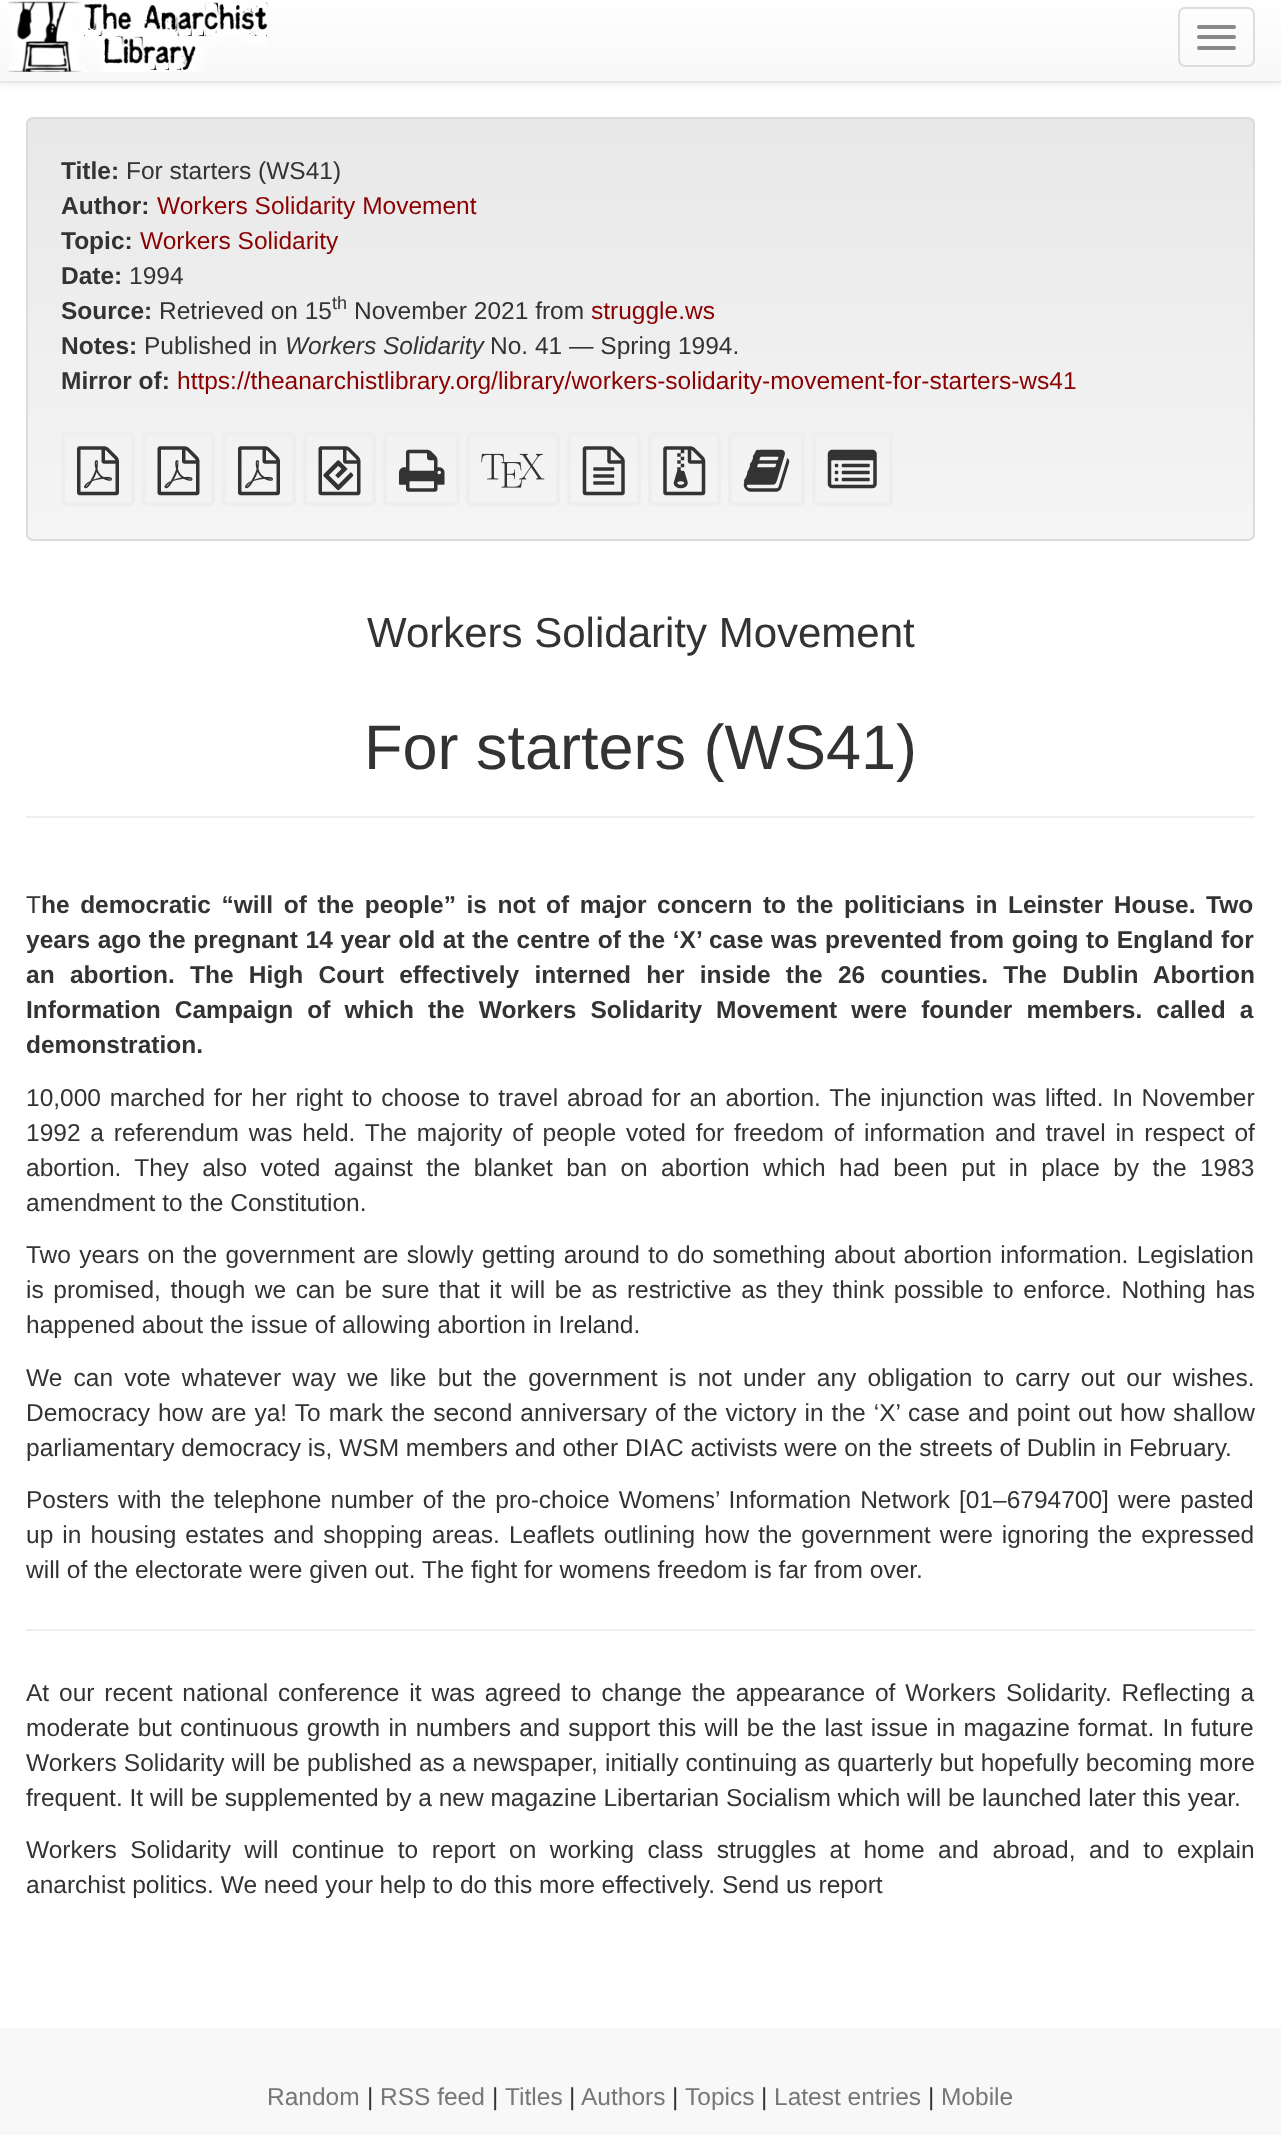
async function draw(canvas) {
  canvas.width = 1281;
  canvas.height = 2135;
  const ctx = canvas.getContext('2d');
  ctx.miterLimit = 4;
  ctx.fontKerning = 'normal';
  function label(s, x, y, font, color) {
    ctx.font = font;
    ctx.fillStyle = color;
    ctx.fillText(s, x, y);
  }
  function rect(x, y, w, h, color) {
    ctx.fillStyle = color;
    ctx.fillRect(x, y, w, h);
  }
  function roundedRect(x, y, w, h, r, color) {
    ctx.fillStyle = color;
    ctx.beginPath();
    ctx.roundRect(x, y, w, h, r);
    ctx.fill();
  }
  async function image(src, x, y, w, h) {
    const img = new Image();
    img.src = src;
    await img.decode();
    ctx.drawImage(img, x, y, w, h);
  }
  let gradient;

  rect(0, 0, 1281, 2135, '#fff');
  ctx.fillStyle = '#00000012';
  ctx.filter = 'blur(4.5px)';
  ctx.beginPath();
  ctx.rect(0, -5, 1281, 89);
  ctx.fill();
  ctx.filter = 'none';
  gradient = ctx.createLinearGradient(641, -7, 641, 81);
  gradient.addColorStop(0, '#fff');
  gradient.addColorStop(1, '#f8f8f8');
  ctx.fillStyle = gradient;
  ctx.fillRect(0, 0, 1281, 81);
  rect(0, 81, 1281, 2, '#e7e7e7');
  await image('assets/img1.png', 8, 1, 260, 71);
  ctx.beginPath();
  ctx.roundRect(1179, 8, 75, 58, 6);
  ctx.strokeStyle = '#ddd';
  ctx.lineWidth = 2;
  ctx.stroke();
  roundedRect(1197, 25, 39, 4, 2, '#888');
  roundedRect(1197, 35, 39, 4, 2, '#888');
  roundedRect(1197, 46, 39, 4, 2, '#888');
  ctx.save();
  ctx.beginPath();
  ctx.roundRect(26, 117, 1229, 424, 7);
  ctx.clip();
  gradient = ctx.createLinearGradient(641, 119, 641, 539);
  gradient.addColorStop(0, '#e8e8e8');
  gradient.addColorStop(1, '#f5f5f5');
  ctx.fillStyle = gradient;
  ctx.fillRect(26, 119, 1229, 420);
  ctx.restore();
  ctx.beginPath();
  ctx.roundRect(27, 118, 1227, 422, 6);
  ctx.strokeStyle = '#dcdcdc';
  ctx.stroke();
  label('Title:', 61, 179, 'bold 24.5px Liberation Sans', '#333');
  label('For starters (WS41)', 126, 179, '24.5px Liberation Sans', '#333');
  label('Author:', 61, 214, 'bold 24.5px Liberation Sans', '#333');
  label('Workers Solidarity Movement', 157, 214, '24.5px Liberation Sans', '#8b0000');
  label('Topic:', 61, 249, 'bold 24.5px Liberation Sans', '#333');
  label('Workers Solidarity', 140, 249, '24.5px Liberation Sans', '#8b0000');
  label('Date:', 61, 284, 'bold 24.5px Liberation Sans', '#333');
  label('1994', 129, 284, '24.5px Liberation Sans', '#333');
  label('Source:', 61, 319, 'bold 24.5px Liberation Sans', '#333');
  label('Retrieved on 15', 159, 319, '24.5px Liberation Sans', '#333');
  label('th', 332, 309, '18px Liberation Sans', '#333');
  label('November 2021 from', 354, 319, '24.5px Liberation Sans', '#333');
  label('struggle.ws', 591, 319, '24.5px Liberation Sans', '#8b0000');
  label('Notes:', 61, 354, 'bold 24.5px Liberation Sans', '#333');
  label('Published in', 144, 354, '24.5px Liberation Sans', '#333');
  label('Workers Solidarity', 285, 354, 'italic 24.5px Liberation Sans', '#333');
  label('No. 41 — Spring 1994.', 490, 354, '24.5px Liberation Sans', '#333');
  label('Mirror of:', 61, 389, 'bold 24.5px Liberation Sans', '#333');
  label('https://theanarchistlibrary.org/library/workers-solidarity-movement-for-starters-ws41', 177, 389, '24.5px Liberation Sans', '#8b0000');
  ctx.beginPath();
  ctx.roundRect(63, 434, 70, 70, 3);
  ctx.strokeStyle = '#eee';
  ctx.lineWidth = 4;
  ctx.stroke();
  await image('assets/img2.png', 77, 446, 42, 50);
  ctx.beginPath();
  ctx.roundRect(144, 434, 69, 70, 3);
  ctx.stroke();
  await image('assets/img3.png', 157, 446, 43, 50);
  ctx.beginPath();
  ctx.roundRect(224, 434, 70, 70, 3);
  ctx.stroke();
  await image('assets/img2.png', 238, 446, 42, 50);
  ctx.beginPath();
  ctx.roundRect(305, 434, 69, 70, 3);
  ctx.stroke();
  await image('assets/img4.png', 318, 446, 43, 50);
  ctx.beginPath();
  ctx.roundRect(385, 434, 73, 70, 3);
  ctx.stroke();
  await image('assets/img5.png', 399, 449, 46, 43);
  ctx.beginPath();
  ctx.roundRect(468, 434, 90, 70, 3);
  ctx.stroke();
  await image('assets/img6.png', 481, 453, 64, 35);
  ctx.beginPath();
  ctx.roundRect(569, 434, 70, 70, 3);
  ctx.stroke();
  await image('assets/img7.png', 582, 446, 43, 50);
  ctx.beginPath();
  ctx.roundRect(650, 434, 69, 70, 3);
  ctx.stroke();
  await image('assets/img8.png', 663, 446, 43, 50);
  ctx.beginPath();
  ctx.roundRect(730, 434, 73, 70, 3);
  ctx.stroke();
  await image('assets/img9.png', 743, 449, 47, 43);
  ctx.beginPath();
  ctx.roundRect(814, 434, 77, 70, 3);
  ctx.stroke();
  await image('assets/img10.png', 827, 449, 50, 40);
  rect(26, 816, 1229, 2, '#eee');
  label('Workers Solidarity Movement', 367, 647, '42px Liberation Sans', '#333');
  label('For starters (WS41)', 364, 769, '63px Liberation Sans', '#333');
  label('T', 26, 913, '24.5px Liberation Sans', '#333');
  ctx.wordSpacing = '3.75px';
  label('he democratic “will of the people” is not of major concern to the politicians in Leinster House. Two', 41, 913, 'bold 24.5px Liberation Sans', '#333');
  ctx.wordSpacing = '0.8px';
  label('years ago the pregnant 14 year old at the centre of the ‘X’ case was prevented from going to England for', 26, 948, 'bold 24.5px Liberation Sans', '#333');
  ctx.wordSpacing = '8.5px';
  label('an abortion. The High Court effectively interned her inside the 26 counties. The Dublin Abortion', 26, 983, 'bold 24.5px Liberation Sans', '#333');
  ctx.wordSpacing = '7.25px';
  label('Information Campaign of which the Workers Solidarity Movement were founder members. called a', 26, 1018, 'bold 24.5px Liberation Sans', '#333');
  ctx.wordSpacing = '0px';
  label('demonstration.', 26, 1053, 'bold 24.5px Liberation Sans', '#333');
  ctx.wordSpacing = '2px';
  label('10,000 marched for her right to choose to travel abroad for an abortion. The injunction was lifted. In November', 26, 1106, '24.5px Liberation Sans', '#333');
  ctx.wordSpacing = '3px';
  label('1992 a referendum was held. The majority of people voted for freedom of information and travel in respect of', 26, 1141, '24.5px Liberation Sans', '#333');
  ctx.wordSpacing = '6.6px';
  label('abortion. They also voted against the blanket ban on abortion which had been put in place by the 1983', 26, 1176, '24.5px Liberation Sans', '#333');
  ctx.wordSpacing = '0px';
  label('amendment to the Constitution.', 26, 1211, '24.5px Liberation Sans', '#333');
  ctx.wordSpacing = '1.5px';
  label('Two years on the government are slowly getting around to do something about abortion information. Legislation', 26, 1263, '24.5px Liberation Sans', '#333');
  ctx.wordSpacing = '2.75px';
  label('is promised, though we can be sure that it will be as restrictive as they think possible to enforce. Nothing has', 26, 1298, '24.5px Liberation Sans', '#333');
  ctx.wordSpacing = '0px';
  label('happened about the issue of allowing abortion in Ireland.', 26, 1333, '24.5px Liberation Sans', '#333');
  ctx.wordSpacing = '4.4px';
  label('We can vote whatever way we like but the government is not under any obligation to carry out our wishes.', 26, 1386, '24.5px Liberation Sans', '#333');
  ctx.wordSpacing = '1.25px';
  label('Democracy how are ya! To mark the second anniversary of the victory in the ‘X’ case and point out how shallow', 26, 1421, '24.5px Liberation Sans', '#333');
  ctx.wordSpacing = '0px';
  label('parliamentary democracy is, WSM members and other DIAC activists were on the streets of Dublin in February.', 26, 1456, '24.5px Liberation Sans', '#333');
  ctx.wordSpacing = '2.25px';
  label('Posters with the telephone number of the pro-choice Womens’ Information Network [01–6794700] were pasted', 26, 1508, '24.5px Liberation Sans', '#333');
  label('up in housing estates and shopping areas. Leaflets outlining how the government were ignoring the expressed', 26, 1543, '24.5px Liberation Sans', '#333');
  ctx.wordSpacing = '0px';
  label('will of the electorate were given out. The fight for womens freedom is far from over.', 26, 1578, '24.5px Liberation Sans', '#333');
  rect(26, 1629, 1229, 2, '#eee');
  ctx.wordSpacing = '3.1px';
  label('At our recent national conference it was agreed to change the appearance of Workers Solidarity. Reflecting a', 26, 1701, '24.5px Liberation Sans', '#333');
  ctx.wordSpacing = '1.4px';
  label('moderate but continuous growth in numbers and support this will be the last issue in magazine format. In future', 26, 1736, '24.5px Liberation Sans', '#333');
  ctx.wordSpacing = '0.25px';
  label('Workers Solidarity will be published as a newspaper, initially continuing as quarterly but hopefully becoming more', 26, 1771, '24.5px Liberation Sans', '#333');
  ctx.wordSpacing = '0px';
  label('frequent. It will be supplemented by a new magazine Libertarian Socialism which will be launched later this year.', 26, 1806, '24.5px Liberation Sans', '#333');
  ctx.wordSpacing = '6.6px';
  label('Workers Solidarity will continue to report on working class struggles at home and abroad, and to explain', 26, 1858, '24.5px Liberation Sans', '#333');
  ctx.wordSpacing = '0px';
  label('anarchist politics. We need your help to do this more effectively. Send us report', 26, 1893, '24.5px Liberation Sans', '#333');
  rect(0, 2028, 1281, 107, '#f8f8f8');
  label('Random', 267, 2105, '24.5px Liberation Sans', '#777');
  label('|', 367, 2105, '24.5px Liberation Sans', '#333');
  label('RSS feed', 380, 2105, '24.5px Liberation Sans', '#777');
  label('|', 492, 2105, '24.5px Liberation Sans', '#333');
  label('Titles', 505, 2105, '24.5px Liberation Sans', '#777');
  label('|', 569, 2105, '24.5px Liberation Sans', '#333');
  label('Authors', 581, 2105, '24.5px Liberation Sans', '#777');
  label('|', 672, 2105, '24.5px Liberation Sans', '#333');
  label('Topics', 685, 2105, '24.5px Liberation Sans', '#777');
  label('|', 761, 2105, '24.5px Liberation Sans', '#333');
  label('Latest entries', 774, 2105, '24.5px Liberation Sans', '#777');
  label('|', 928, 2105, '24.5px Liberation Sans', '#333');
  label('Mobile', 941, 2105, '24.5px Liberation Sans', '#777');
}

draw(document.querySelector('canvas'));
